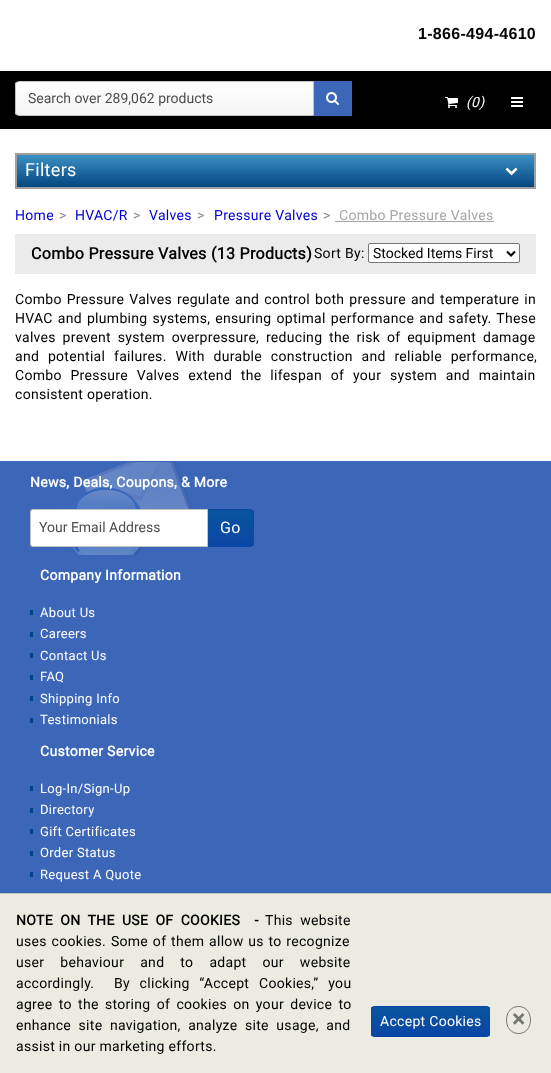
async function draw(canvas) {
  canvas.width = 551;
  canvas.height = 1073;
  const ctx = canvas.getContext('2d');
  ctx.miterLimit = 4;
  ctx.fontKerning = 'normal';
  function label(s, x, y, font, color) {
    ctx.font = font;
    ctx.fillStyle = color;
    ctx.fillText(s, x, y);
  }
  function rect(x, y, w, h, color) {
    ctx.fillStyle = color;
    ctx.fillRect(x, y, w, h);
  }
  async function image(src, x, y, w, h) {
    const img = new Image();
    img.src = src;
    await img.decode();
    ctx.drawImage(img, x, y, w, h);
  }
  let gradient, path;

  rect(0, 0, 551, 1073, '#fff');
  ctx.letterSpacing = '0.3px';
  label('1-866-494-4610', 418, 39, 'bold 16px Liberation Sans', '#000');
  rect(0, 71, 551, 58, '#000');
  ctx.save();
  ctx.beginPath();
  ctx.roundRect(15, 81, 299, 35, [4, 0, 0, 4]);
  ctx.clip();
  gradient = ctx.createLinearGradient(165, 82, 165, 115);
  gradient.addColorStop(0, '#fff');
  gradient.addColorStop(1, '#f4f4f4');
  ctx.fillStyle = gradient;
  ctx.fillRect(15, 82, 298, 33);
  ctx.restore();
  ctx.beginPath();
  ctx.roundRect(15.5, 81.5, 298, 34, [3.5, 0, 0, 3.5]);
  ctx.strokeStyle = '#c2c2c2';
  ctx.stroke();
  ctx.letterSpacing = '0px';
  label('Search over 289,062 products', 28, 103, '14px Roboto', '#4d4d4f');
  rect(314, 81, 38, 35, '#3c67b8');
  await image('assets/img1.png', 326, 92, 13, 13);
  await image('assets/img2.png', 445, 97, 13, 11);
  ctx.letterSpacing = '0.3px';
  label('(0)', 466, 107, 'italic 14px Roboto', '#fff');
  await image('assets/img3.png', 511, 97, 12, 10);
  ctx.strokeStyle = '#a09f9f';
  ctx.strokeRect(15.5, 153.5, 520, 35);
  gradient = ctx.createLinearGradient(276, 155, 276, 187);
  gradient.addColorStop(0, '#3a90c4');
  gradient.addColorStop(1, '#04477f');
  ctx.fillStyle = gradient;
  ctx.fillRect(17, 155, 517, 32);
  ctx.strokeRect(16.5, 154.5, 518, 33);
  label('Filters', 25, 176, '18px Roboto', '#fff');
  await image('assets/img4.png', 505, 167, 13, 9);
  label('Home', 15, 220, '14px Roboto', '#00c');
  label('>', 59, 220, '14px Roboto', '#868e96');
  label('HVAC/R', 75, 220, '14px Roboto', '#00c');
  label('>', 133, 220, '14px Roboto', '#868e96');
  label('Valves', 149, 220, '14px Roboto', '#00c');
  label('>', 197, 220, '14px Roboto', '#868e96');
  label('Pressure Valves', 214, 220, '14px Roboto', '#00c');
  label('>', 323, 220, '14px Roboto', '#868e96');
  label('Combo Pressure Valves', 339, 220, '14px Roboto', '#a6a6a6');
  rect(335, 221, 159, 1, '#a6a6a6');
  rect(15, 234, 521, 40, '#ebebeb');
  label('Combo Pressure Valves (13 Products)', 31, 259, 'bold 16px Roboto', '#000');
  label('Sort By:', 314, 258, '14px Roboto', '#000');
  ctx.fillStyle = '#fff';
  ctx.beginPath();
  ctx.roundRect(368.5, 243.5, 151, 19, 1.5);
  ctx.fill();
  ctx.strokeStyle = '#767676';
  ctx.stroke();
  path = new Path2D('M507 251.5L511 255.5L515 251.5');
  ctx.strokeStyle = '#000';
  ctx.lineWidth = 2;
  ctx.stroke(path);
  ctx.letterSpacing = '0px';
  label('Stocked Items First', 373, 258, '14px Roboto', '#000');
  ctx.letterSpacing = '0.3px';
  ctx.wordSpacing = '1.25px';
  label('Combo Pressure Valves regulate and control both pressure and temperature in', 15, 304, '14px Roboto', '#000');
  label('HVAC and plumbing systems, ensuring optimal performance and safety. These', 15, 323, '14px Roboto', '#000');
  ctx.wordSpacing = '3px';
  label('valves prevent system overpressure, reducing the risk of equipment damage', 15, 342, '14px Roboto', '#000');
  ctx.wordSpacing = '5px';
  label('and potential failures. With durable construction and reliable performance,', 15, 361, '14px Roboto', '#000');
  label('Combo Pressure Valves extend the lifespan of your system and maintain', 15, 380, '14px Roboto', '#000');
  ctx.wordSpacing = '0px';
  label('consistent operation.', 15, 399, '14px Roboto', '#000');
  rect(0, 461, 551, 432, '#3c67b8');
  await image('assets/img5.png', 71, 462, 122, 93);
  label('News, Deals, Coupons, & More', 30, 487, 'bold 14px Roboto', '#fff');
  ctx.beginPath();
  ctx.roundRect(30.5, 509.5, 177, 37, [2.5, 0, 0, 2.5]);
  ctx.fill();
  ctx.strokeStyle = '#c2c2c2';
  ctx.lineWidth = 1;
  ctx.stroke();
  ctx.letterSpacing = '0px';
  label('Your Email Address', 39, 532, '14px Roboto', '#4d4d4f');
  ctx.save();
  ctx.beginPath();
  ctx.roundRect(208, 509, 46, 38, [0, 4, 4, 0]);
  ctx.clip();
  gradient = ctx.createLinearGradient(231, 510, 231, 546);
  gradient.addColorStop(0, '#09549e');
  gradient.addColorStop(1, '#0a46a6');
  ctx.fillStyle = gradient;
  ctx.fillRect(208, 510, 46, 36);
  ctx.restore();
  ctx.fillStyle = '#0a46a6';
  path = new Path2D('M208 509H250C252 509 254 511 254 513V543C254 545 252 547 250 547H208ZM208 510H250C252 510 253 511 253 513V543C253 545 252 546 250 546H208Z');
  ctx.fill(path, 'evenodd');
  ctx.letterSpacing = '0.3px';
  label('Go', 220, 533, '16px Roboto', '#fff');
  label('Company Information', 40, 580, 'bold 14px Roboto', '#fff');
  rect(30, 610, 3, 5, '#004389');
  label('About Us', 40, 617, '13px Roboto', '#fff');
  rect(30, 632, 3, 5, '#004389');
  label('Careers', 40, 638, '13px Roboto', '#fff');
  rect(30, 653, 3, 5, '#004389');
  label('Contact Us', 40, 660, '13px Roboto', '#fff');
  rect(30, 675, 3, 5, '#004389');
  label('FAQ', 40, 681, '13px Roboto', '#fff');
  rect(30, 696, 3, 5, '#004389');
  label('Shipping Info', 40, 703, '13px Roboto', '#fff');
  rect(30, 718, 3, 5, '#004389');
  label('Testimonials', 40, 724, '13px Roboto', '#fff');
  label('Customer Service', 40, 756, 'bold 14px Roboto', '#fff');
  rect(30, 786, 3, 5, '#004389');
  label('Log-In/Sign-Up', 40, 793, '13px Roboto', '#fff');
  rect(30, 808, 3, 5, '#004389');
  label('Directory', 40, 814, '13px Roboto', '#fff');
  rect(30, 829, 3, 5, '#004389');
  label('Gift Certificates', 40, 836, '13px Roboto', '#fff');
  rect(30, 851, 3, 5, '#004389');
  label('Order Status', 40, 857, '13px Roboto', '#fff');
  rect(30, 872, 3, 5, '#004389');
  label('Request A Quote', 40, 879, '13px Roboto', '#fff');
  rect(0, 894, 551, 179, '#ebebe1');
  rect(0, 893, 551, 1, '#c2c2c2');
  ctx.wordSpacing = '3.5px';
  label('NOTE ON THE USE OF COOKIES  -', 16, 925, 'bold 14px Roboto', '#000');
  label('This website', 265, 925, '14px Roboto', '#000');
  ctx.wordSpacing = '1px';
  label('uses cookies. Some of them allow us to recognize', 16, 946, '14px Roboto', '#000');
  ctx.wordSpacing = '12.25px';
  label('user behaviour and to adapt our website', 16, 967, '14px Roboto', '#000');
  ctx.wordSpacing = '6px';
  label('accordingly.  By clicking “Accept Cookies,” you', 16, 988, '14px Roboto', '#000');
  ctx.wordSpacing = '2.5px';
  label('agree to the storing of cookies on your device to', 16, 1009, '14px Roboto', '#000');
  ctx.wordSpacing = '3.75px';
  label('enhance site navigation, analyze site usage, and', 16, 1030, '14px Roboto', '#000');
  ctx.save();
  ctx.beginPath();
  ctx.roundRect(371, 1006, 119, 31, 3);
  ctx.clip();
  gradient = ctx.createLinearGradient(431, 1007, 431, 1036);
  gradient.addColorStop(0, '#09549e');
  gradient.addColorStop(1, '#0a46a6');
  ctx.fillStyle = gradient;
  ctx.fillRect(371, 1007, 119, 29);
  ctx.restore();
  ctx.beginPath();
  ctx.roundRect(371.5, 1006.5, 118, 30, 2.5);
  ctx.strokeStyle = '#0a46a6';
  ctx.stroke();
  ctx.wordSpacing = '0px';
  label('Accept Cookies', 380, 1026, '14px Roboto', '#fff');
  path = new Path2D('M518.5 1006.5C534.5 1006.5 534.5 1033.5 518.5 1033.5C502.5 1033.5 502.5 1006.5 518.5 1006.5Z');
  ctx.strokeStyle = '#767671';
  ctx.stroke(path);
  ctx.letterSpacing = '0px';
  label('×', 512, 1027, 'bold 24px Roboto', '#767671');
  ctx.letterSpacing = '0.3px';
  label('assist in our marketing efforts.', 16, 1051, '14px Roboto', '#000');
}

draw(document.querySelector('canvas'));
